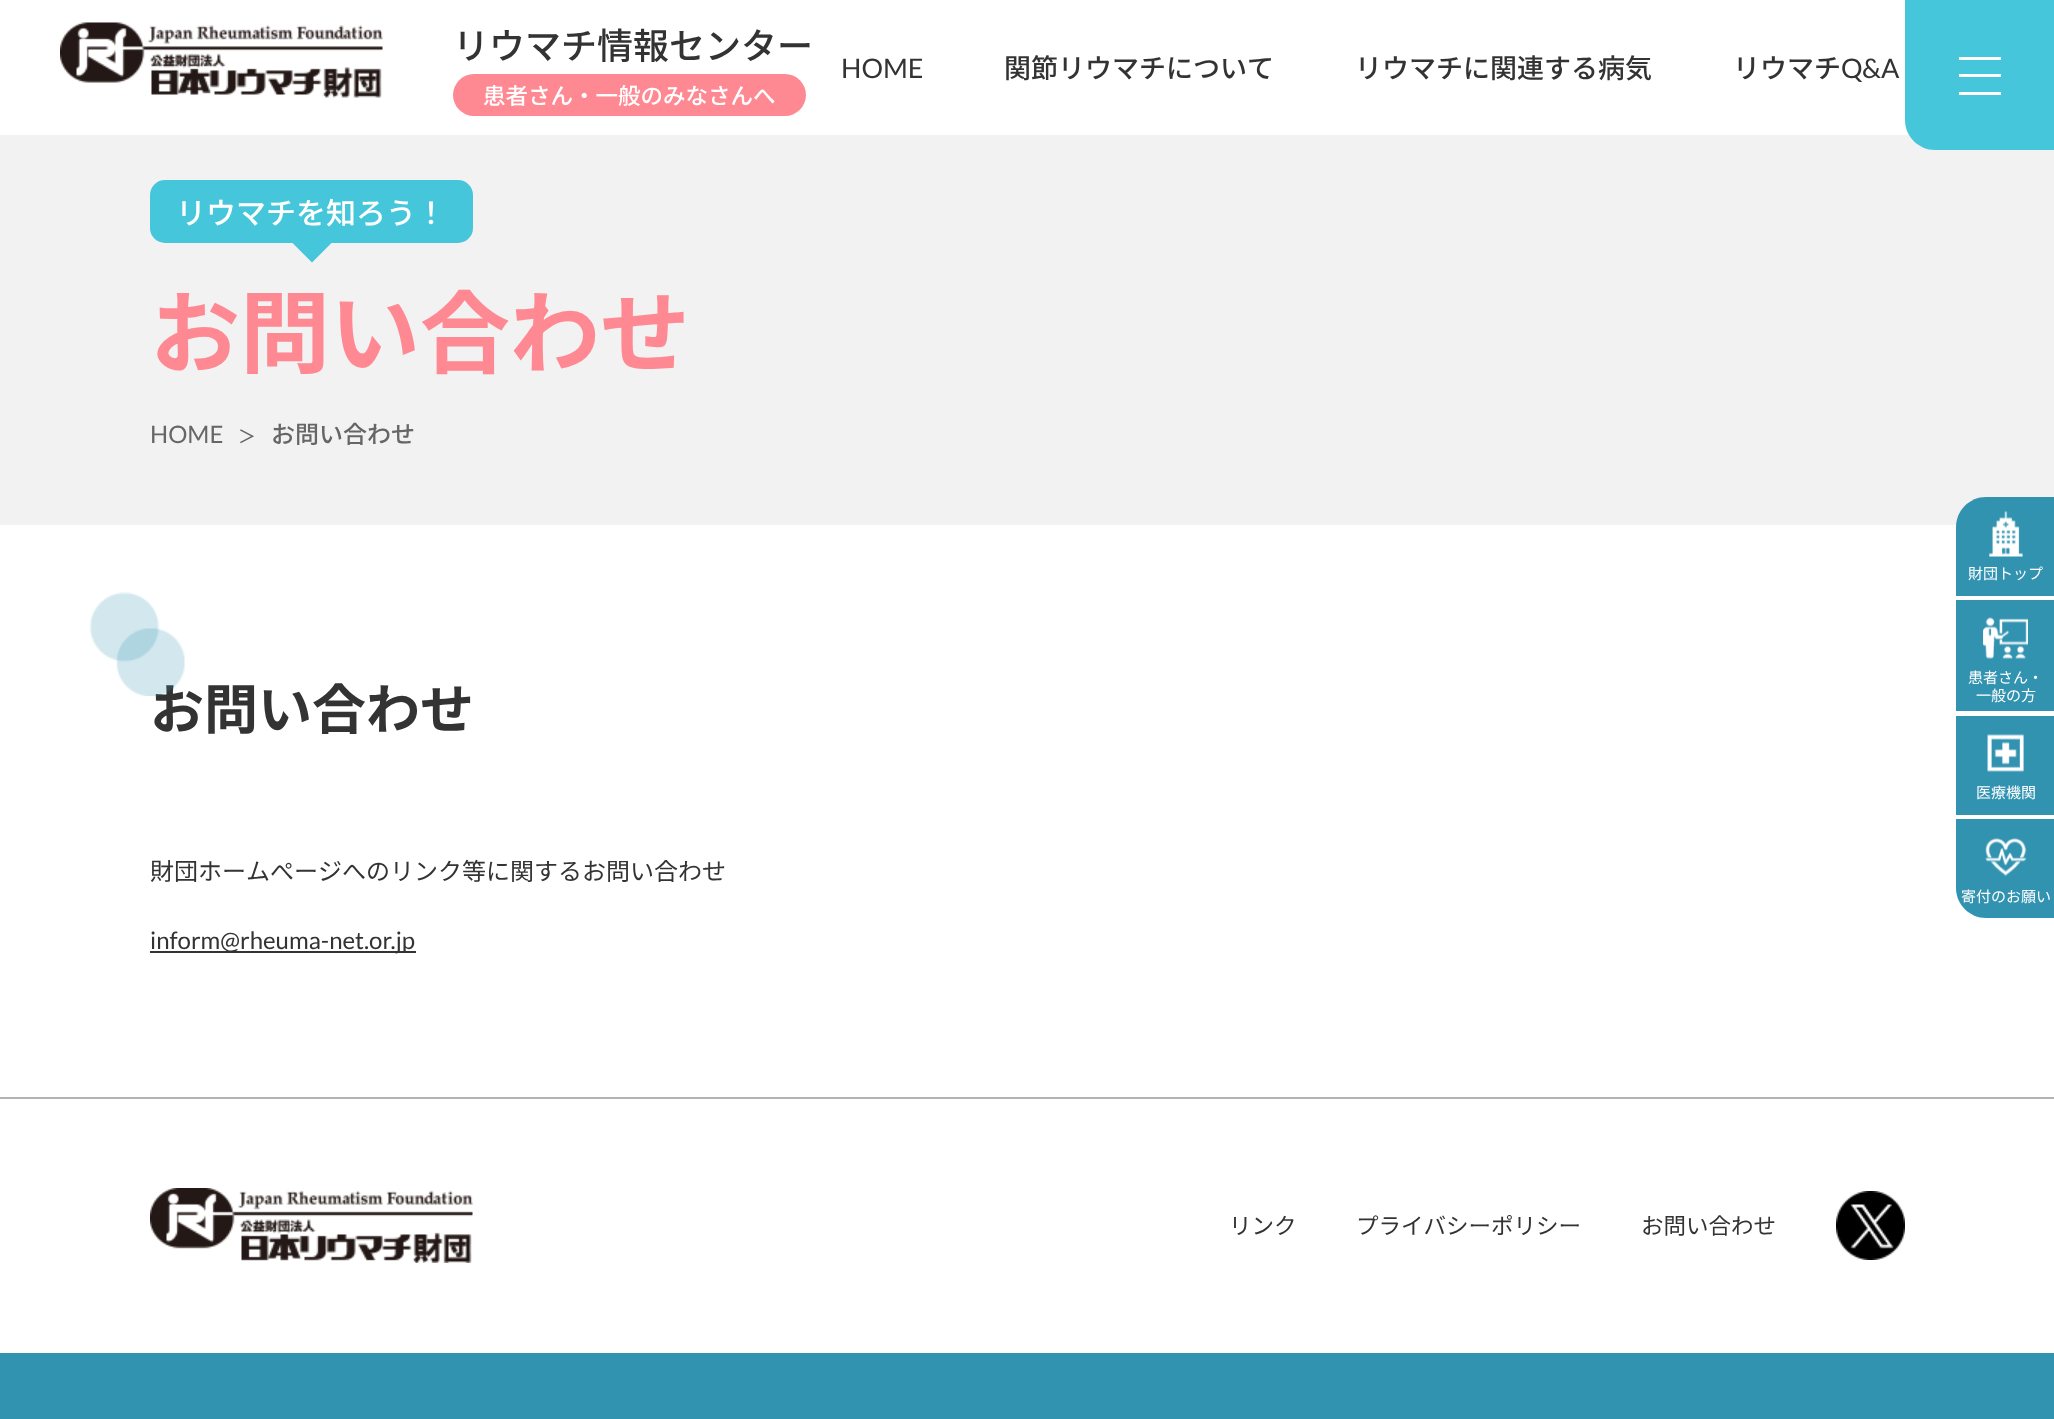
async function draw(canvas) {
  canvas.width = 2054;
  canvas.height = 1419;
  const ctx = canvas.getContext('2d');
  ctx.miterLimit = 4;
  ctx.fontKerning = 'normal';
  function label(s, x, y, font, color) {
    ctx.font = font;
    ctx.fillStyle = color;
    ctx.fillText(s, x, y);
  }
  function rect(x, y, w, h, color) {
    ctx.fillStyle = color;
    ctx.fillRect(x, y, w, h);
  }
  function roundedRect(x, y, w, h, r, color) {
    ctx.fillStyle = color;
    ctx.beginPath();
    ctx.roundRect(x, y, w, h, r);
    ctx.fill();
  }
  async function image(src, x, y, w, h) {
    const img = new Image();
    img.src = src;
    await img.decode();
    ctx.drawImage(img, x, y, w, h);
  }
  let path;

  rect(0, 0, 2054, 1419, '#fff');
  await image('assets/img1.png', 60, 22, 323, 76);
  label('リウマチ情報センター', 453, 59, '500 36px Noto Sans JP', '#333');
  roundedRect(453, 74, 353, 42, 21, '#ff8993');
  label('患者さん・一般のみなさんへ', 483, 104, '500 22.5px Noto Sans JP', '#fff');
  label('HOME', 841, 78, '27px Lato', '#333');
  label('関節リウマチについて', 1004, 78, '500 27px Noto Sans JP', '#333');
  label('リウマチに関連する病気', 1355, 78, '500 27px Noto Sans JP', '#333');
  label('リウマチ', 1733, 78, '500 27px Noto Sans JP', '#333');
  label('Q&A', 1841, 78, '27px Lato', '#333');
  rect(0, 135, 2054, 390, '#f2f2f2');
  ctx.fillStyle = '#46c6da';
  path = new Path2D('M1905 0H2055V150H1935C1918.5 150 1905 136.5 1905 120Z');
  ctx.fill(path);
  rect(1959, 57, 42, 3, '#fff');
  rect(1959, 74, 42, 3, '#fff');
  rect(1959, 92, 42, 3, '#fff');
  roundedRect(150, 180, 323, 63, 15, '#46c6da');
  label('リウマチを知ろう！', 176, 224, '500 30px Noto Sans JP', '#fff');
  ctx.fillStyle = '#46c6da';
  path = new Path2D('M292.5 243H331.5L312 262.5Z');
  ctx.fill(path);
  label('お問い合わせ', 150, 366, 'bold 90px Noto Sans JP', '#ff8993');
  label('HOME', 150, 443, '24px Lato', '#666');
  label('＞', 238, 443, '500 18px Noto Sans JP', '#666');
  label('お問い合わせ', 271, 443, '500 24px Noto Sans JP', '#666');
  label('お問い合わせ', 150, 729, 'bold 54px Noto Sans JP', '#333');
  await image('assets/img2.png', 90, 592, 95, 104);
  label('財団ホームぺージへのリンク等に関するお問い合わせ', 150, 880, '24px Noto Sans JP', '#333');
  rect(150, 951, 266, 2, '#333');
  label('inform@rheuma-net.or.jp', 150, 949, '24px Lato', '#333');
  ctx.fillStyle = '#3293b1';
  path = new Path2D('M1986 497H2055V596H1956V527C1956 510.5 1969.5 497 1986 497Z');
  ctx.fill(path);
  await image('assets/img3.png', 1989, 511, 34, 46);
  label('財団トップ', 1968, 579, '15px Noto Sans JP', '#fff');
  rect(1956, 600, 98, 111, '#3293b1');
  await image('assets/img4.png', 1983, 617, 45, 42);
  label('患者さん・', 1968, 683, '15px Noto Sans JP', '#fff');
  label('一般の方', 1976, 701, '15px Noto Sans JP', '#fff');
  rect(1956, 716, 98, 99, '#3293b1');
  await image('assets/img5.png', 1987, 734, 37, 38);
  label('医療機関', 1976, 798, '15px Noto Sans JP', '#fff');
  ctx.fillStyle = '#3293b1';
  path = new Path2D('M1956 819H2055V918H1986C1969.5 918 1956 904.5 1956 888Z');
  ctx.fill(path);
  await image('assets/img6.png', 1985, 838, 42, 38);
  label('寄付のお願い', 1961, 902, '15px Noto Sans JP', '#fff');
  rect(0, 1097, 2054, 2, '#b3b3b3');
  await image('assets/img7.png', 150, 1188, 323, 75);
  label('リンク', 1229, 1234, '22.5px Noto Sans JP', '#333');
  label('プライバシーポリシー', 1356, 1234, '22.5px Noto Sans JP', '#333');
  label('お問い合わせ', 1641, 1234, '22.5px Noto Sans JP', '#333');
  await image('assets/img8.png', 1836, 1191, 69, 69);
  rect(0, 1353, 2054, 66, '#3293b1');
}

draw(document.querySelector('canvas'));
